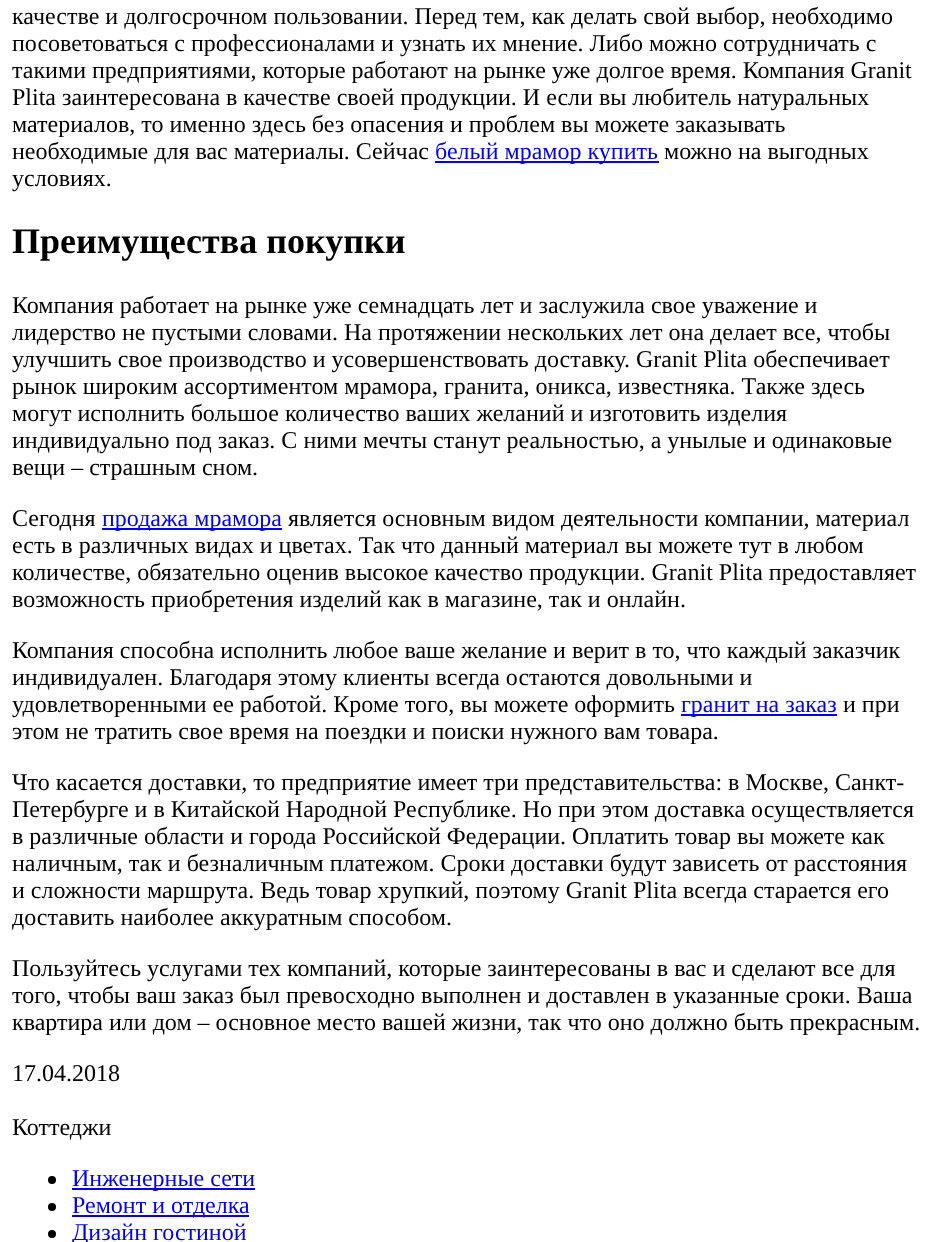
async function draw(canvas) {
  canvas.width = 936;
  canvas.height = 1242;
  const ctx = canvas.getContext('2d');
  ctx.miterLimit = 4;
  ctx.fontKerning = 'normal';
  function label(s, x, y, font, color) {
    ctx.font = font;
    ctx.fillStyle = color;
    ctx.fillText(s, x, y);
  }
  function rect(x, y, w, h, color) {
    ctx.fillStyle = color;
    ctx.fillRect(x, y, w, h);
  }

  rect(0, 0, 936, 1242, '#fff');
  label('качестве и долгосрочном пользовании. Перед тем, как делать свой выбор, необходимо', 12, 24, '24px Liberation Serif', '#000');
  label('посоветоваться с профессионалами и узнать их мнение. Либо можно сотрудничать с', 12, 51, '24px Liberation Serif', '#000');
  label('такими предприятиями, которые работают на рынке уже долгое время. Компания Granit', 12, 78, '24px Liberation Serif', '#000');
  label('Plita заинтересована в качестве своей продукции. И если вы любитель натуральных', 12, 105, '24px Liberation Serif', '#000');
  label('материалов, то именно здесь без опасения и проблем вы можете заказывать', 12, 132, '24px Liberation Serif', '#000');
  label('необходимые для вас материалы. Сейчас', 12, 159, '24px Liberation Serif', '#000');
  rect(435, 161, 224, 2, '#00e');
  label('белый мрамор купить', 435, 159, '24px Liberation Serif', '#00e');
  label('можно на выгодных', 664, 159, '24px Liberation Serif', '#000');
  label('условиях.', 12, 186, '24px Liberation Serif', '#000');
  label('Преимущества покупки', 12, 253, 'bold 36px Liberation Serif', '#000');
  label('Компания работает на рынке уже семнадцать лет и заслужила свое уважение и', 12, 313, '24px Liberation Serif', '#000');
  label('лидерство не пустыми словами. На протяжении нескольких лет она делает все, чтобы', 12, 340, '24px Liberation Serif', '#000');
  label('улучшить свое производство и усовершенствовать доставку. Granit Plita обеспечивает', 12, 367, '24px Liberation Serif', '#000');
  label('рынок широким ассортиментом мрамора, гранита, оникса, известняка. Также здесь', 12, 394, '24px Liberation Serif', '#000');
  label('могут исполнить большое количество ваших желаний и изготовить изделия', 12, 421, '24px Liberation Serif', '#000');
  label('индивидуально под заказ. С ними мечты станут реальностью, а унылые и одинаковые', 12, 448, '24px Liberation Serif', '#000');
  label('вещи – страшным сном.', 12, 475, '24px Liberation Serif', '#000');
  label('Сегодня', 12, 526, '24px Liberation Serif', '#000');
  rect(102, 528, 180, 2, '#00e');
  label('продажа мрамора', 102, 526, '24px Liberation Serif', '#00e');
  label('является основным видом деятельности компании, материал', 288, 526, '24px Liberation Serif', '#000');
  label('есть в различных видах и цветах. Так что данный материал вы можете тут в любом', 12, 553, '24px Liberation Serif', '#000');
  label('количестве, обязательно оценив высокое качество продукции. Granit Plita предоставляет', 12, 580, '24px Liberation Serif', '#000');
  label('возможность приобретения изделий как в магазине, так и онлайн.', 12, 607, '24px Liberation Serif', '#000');
  label('Компания способна исполнить любое ваше желание и верит в то, что каждый заказчик', 12, 658, '24px Liberation Serif', '#000');
  label('индивидуален. Благодаря этому клиенты всегда остаются довольными и', 12, 685, '24px Liberation Serif', '#000');
  label('удовлетворенными ее работой. Кроме того, вы можете оформить', 12, 712, '24px Liberation Serif', '#000');
  rect(681, 714, 156, 2, '#00e');
  label('гранит на заказ', 681, 712, '24px Liberation Serif', '#00e');
  label('и при', 843, 712, '24px Liberation Serif', '#000');
  label('этом не тратить свое время на поездки и поиски нужного вам товара.', 12, 739, '24px Liberation Serif', '#000');
  label('Что касается доставки, то предприятие имеет три представительства: в Москве, Санкт-', 12, 790, '24px Liberation Serif', '#000');
  label('Петербурге и в Китайской Народной Республике. Но при этом доставка осуществляется', 12, 817, '24px Liberation Serif', '#000');
  label('в различные области и города Российской Федерации. Оплатить товар вы можете как', 12, 844, '24px Liberation Serif', '#000');
  label('наличным, так и безналичным платежом. Сроки доставки будут зависеть от расстояния', 12, 871, '24px Liberation Serif', '#000');
  label('и сложности маршрута. Ведь товар хрупкий, поэтому Granit Plita всегда старается его', 12, 898, '24px Liberation Serif', '#000');
  label('доставить наиболее аккуратным способом.', 12, 925, '24px Liberation Serif', '#000');
  label('Пользуйтесь услугами тех компаний, которые заинтересованы в вас и сделают все для', 12, 976, '24px Liberation Serif', '#000');
  label('того, чтобы ваш заказ был превосходно выполнен и доставлен в указанные сроки. Ваша', 12, 1003, '24px Liberation Serif', '#000');
  label('квартира или дом – основное место вашей жизни, так что оно должно быть прекрасным.', 12, 1030, '24px Liberation Serif', '#000');
  label('17.04.2018', 12, 1081, '24px Liberation Serif', '#000');
  label('Коттеджи', 12, 1135, '24px Liberation Serif', '#000');
  ctx.beginPath();
  ctx.arc(52, 1180, 4, 0, 2 * Math.PI);
  ctx.fill();
  rect(72, 1188, 183, 2, '#00e');
  label('Инженерные сети', 72, 1186, '24px Liberation Serif', '#00e');
  ctx.fillStyle = '#000';
  ctx.beginPath();
  ctx.arc(52, 1207, 4, 0, 2 * Math.PI);
  ctx.fill();
  rect(72, 1215, 177, 2, '#00e');
  label('Ремонт и отделка', 72, 1213, '24px Liberation Serif', '#00e');
  ctx.fillStyle = '#000';
  ctx.beginPath();
  ctx.arc(52, 1234, 4, 0, 2 * Math.PI);
  ctx.fill();
  label('Дизайн гостиной', 72, 1240, '24px Liberation Serif', '#00e');
}

draw(document.querySelector('canvas'));
